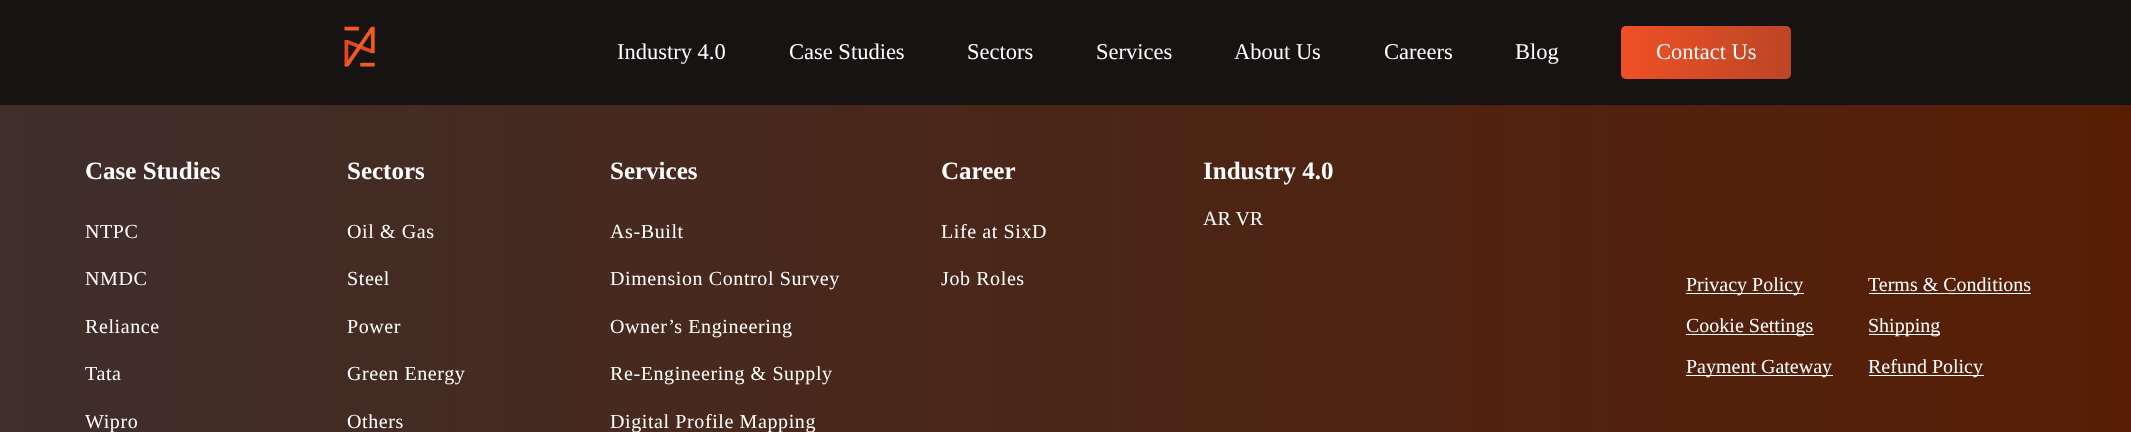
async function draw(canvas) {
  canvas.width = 2131;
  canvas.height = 432;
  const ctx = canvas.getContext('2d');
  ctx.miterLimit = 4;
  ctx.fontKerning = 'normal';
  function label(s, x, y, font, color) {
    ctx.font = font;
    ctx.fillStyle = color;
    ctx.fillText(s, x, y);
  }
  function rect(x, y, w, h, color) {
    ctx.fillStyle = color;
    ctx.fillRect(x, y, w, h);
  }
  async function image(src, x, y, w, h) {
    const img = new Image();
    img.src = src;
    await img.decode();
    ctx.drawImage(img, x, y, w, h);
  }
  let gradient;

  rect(0, 0, 2131, 432, '#fff');
  rect(0, 0, 2131, 105, '#171312');
  await image('assets/img1.png', 344, 26, 32, 41);
  label('Industry 4.0', 617, 59, '22.5px Liberation Serif', '#fff');
  label('Case Studies', 789, 59, '22.5px Liberation Serif', '#fff');
  label('Sectors', 967, 59, '22.5px Liberation Serif', '#fff');
  label('Services', 1096, 59, '22.5px Liberation Serif', '#fff');
  label('About Us', 1234, 59, '22.5px Liberation Serif', '#fff');
  label('Careers', 1384, 59, '22.5px Liberation Serif', '#fff');
  label('Blog', 1515, 59, '22.5px Liberation Serif', '#fff');
  gradient = ctx.createLinearGradient(1621, 53, 1999, 52);
  gradient.addColorStop(0, '#f05025');
  gradient.addColorStop(0.69, '#a04026');
  gradient.addColorStop(1, '#211f1f');
  ctx.fillStyle = gradient;
  ctx.beginPath();
  ctx.roundRect(1621, 26, 170, 53, 5);
  ctx.fill();
  label('Contact Us', 1656, 59, '22.5px Liberation Serif', '#fff');
  gradient = ctx.createLinearGradient(0, 364, 2131, 364);
  gradient.addColorStop(0, '#3f2e2a');
  gradient.addColorStop(1, '#571e05');
  ctx.fillStyle = gradient;
  ctx.fillRect(0, 105, 2131, 327);
  label('Case Studies', 85, 179, 'bold 25px Liberation Serif', '#fff');
  ctx.letterSpacing = '0.6px';
  label('NTPC', 85, 238, '20px Liberation Serif', '#fff');
  label('NMDC', 85, 285, '20px Liberation Serif', '#fff');
  label('Reliance', 85, 333, '20px Liberation Serif', '#fff');
  label('Tata', 85, 380, '20px Liberation Serif', '#fff');
  label('Wipro', 85, 428, '20px Liberation Serif', '#fff');
  ctx.letterSpacing = '0px';
  label('Sectors', 347, 179, 'bold 25px Liberation Serif', '#fff');
  ctx.letterSpacing = '0.6px';
  label('Oil & Gas', 347, 238, '20px Liberation Serif', '#fff');
  label('Steel', 347, 285, '20px Liberation Serif', '#fff');
  label('Power', 347, 333, '20px Liberation Serif', '#fff');
  label('Green Energy', 347, 380, '20px Liberation Serif', '#fff');
  label('Others', 347, 428, '20px Liberation Serif', '#fff');
  ctx.letterSpacing = '0px';
  label('Services', 610, 179, 'bold 25px Liberation Serif', '#fff');
  ctx.letterSpacing = '0.6px';
  label('As-Built', 610, 238, '20px Liberation Serif', '#fff');
  label('Dimension Control Survey', 610, 285, '20px Liberation Serif', '#fff');
  label('Owner’s Engineering', 610, 333, '20px Liberation Serif', '#fff');
  label('Re-Engineering & Supply', 610, 380, '20px Liberation Serif', '#fff');
  label('Digital Profile Mapping', 610, 428, '20px Liberation Serif', '#fff');
  ctx.letterSpacing = '0px';
  label('Career', 941, 179, 'bold 25px Liberation Serif', '#fff');
  ctx.letterSpacing = '0.6px';
  label('Life at SixD', 941, 238, '20px Liberation Serif', '#fff');
  label('Job Roles', 941, 285, '20px Liberation Serif', '#fff');
  ctx.letterSpacing = '0px';
  label('Industry 4.0', 1203, 179, 'bold 25px Liberation Serif', '#fff');
  label('AR VR', 1203, 225, '20px Liberation Serif', '#fff');
  rect(1686, 293, 118, 1, '#fff');
  label('Privacy Policy', 1686, 291, '20px Liberation Serif', '#fff');
  label('Terms & Conditions', 1868, 291, '20px Liberation Serif', '#fff');
  rect(1869, 293, 162, 1, '#fff');
  rect(1686, 334, 128, 1, '#fff');
  label('Cookie Settings', 1686, 332, '20px Liberation Serif', '#fff');
  rect(1869, 334, 71, 1, '#fff');
  label('Shipping', 1868, 332, '20px Liberation Serif', '#fff');
  rect(1686, 375, 147, 1, '#fff');
  label('Payment Gateway', 1686, 373, '20px Liberation Serif', '#fff');
  rect(1869, 375, 115, 1, '#fff');
  label('Refund Policy', 1868, 373, '20px Liberation Serif', '#fff');
}

draw(document.querySelector('canvas'));
